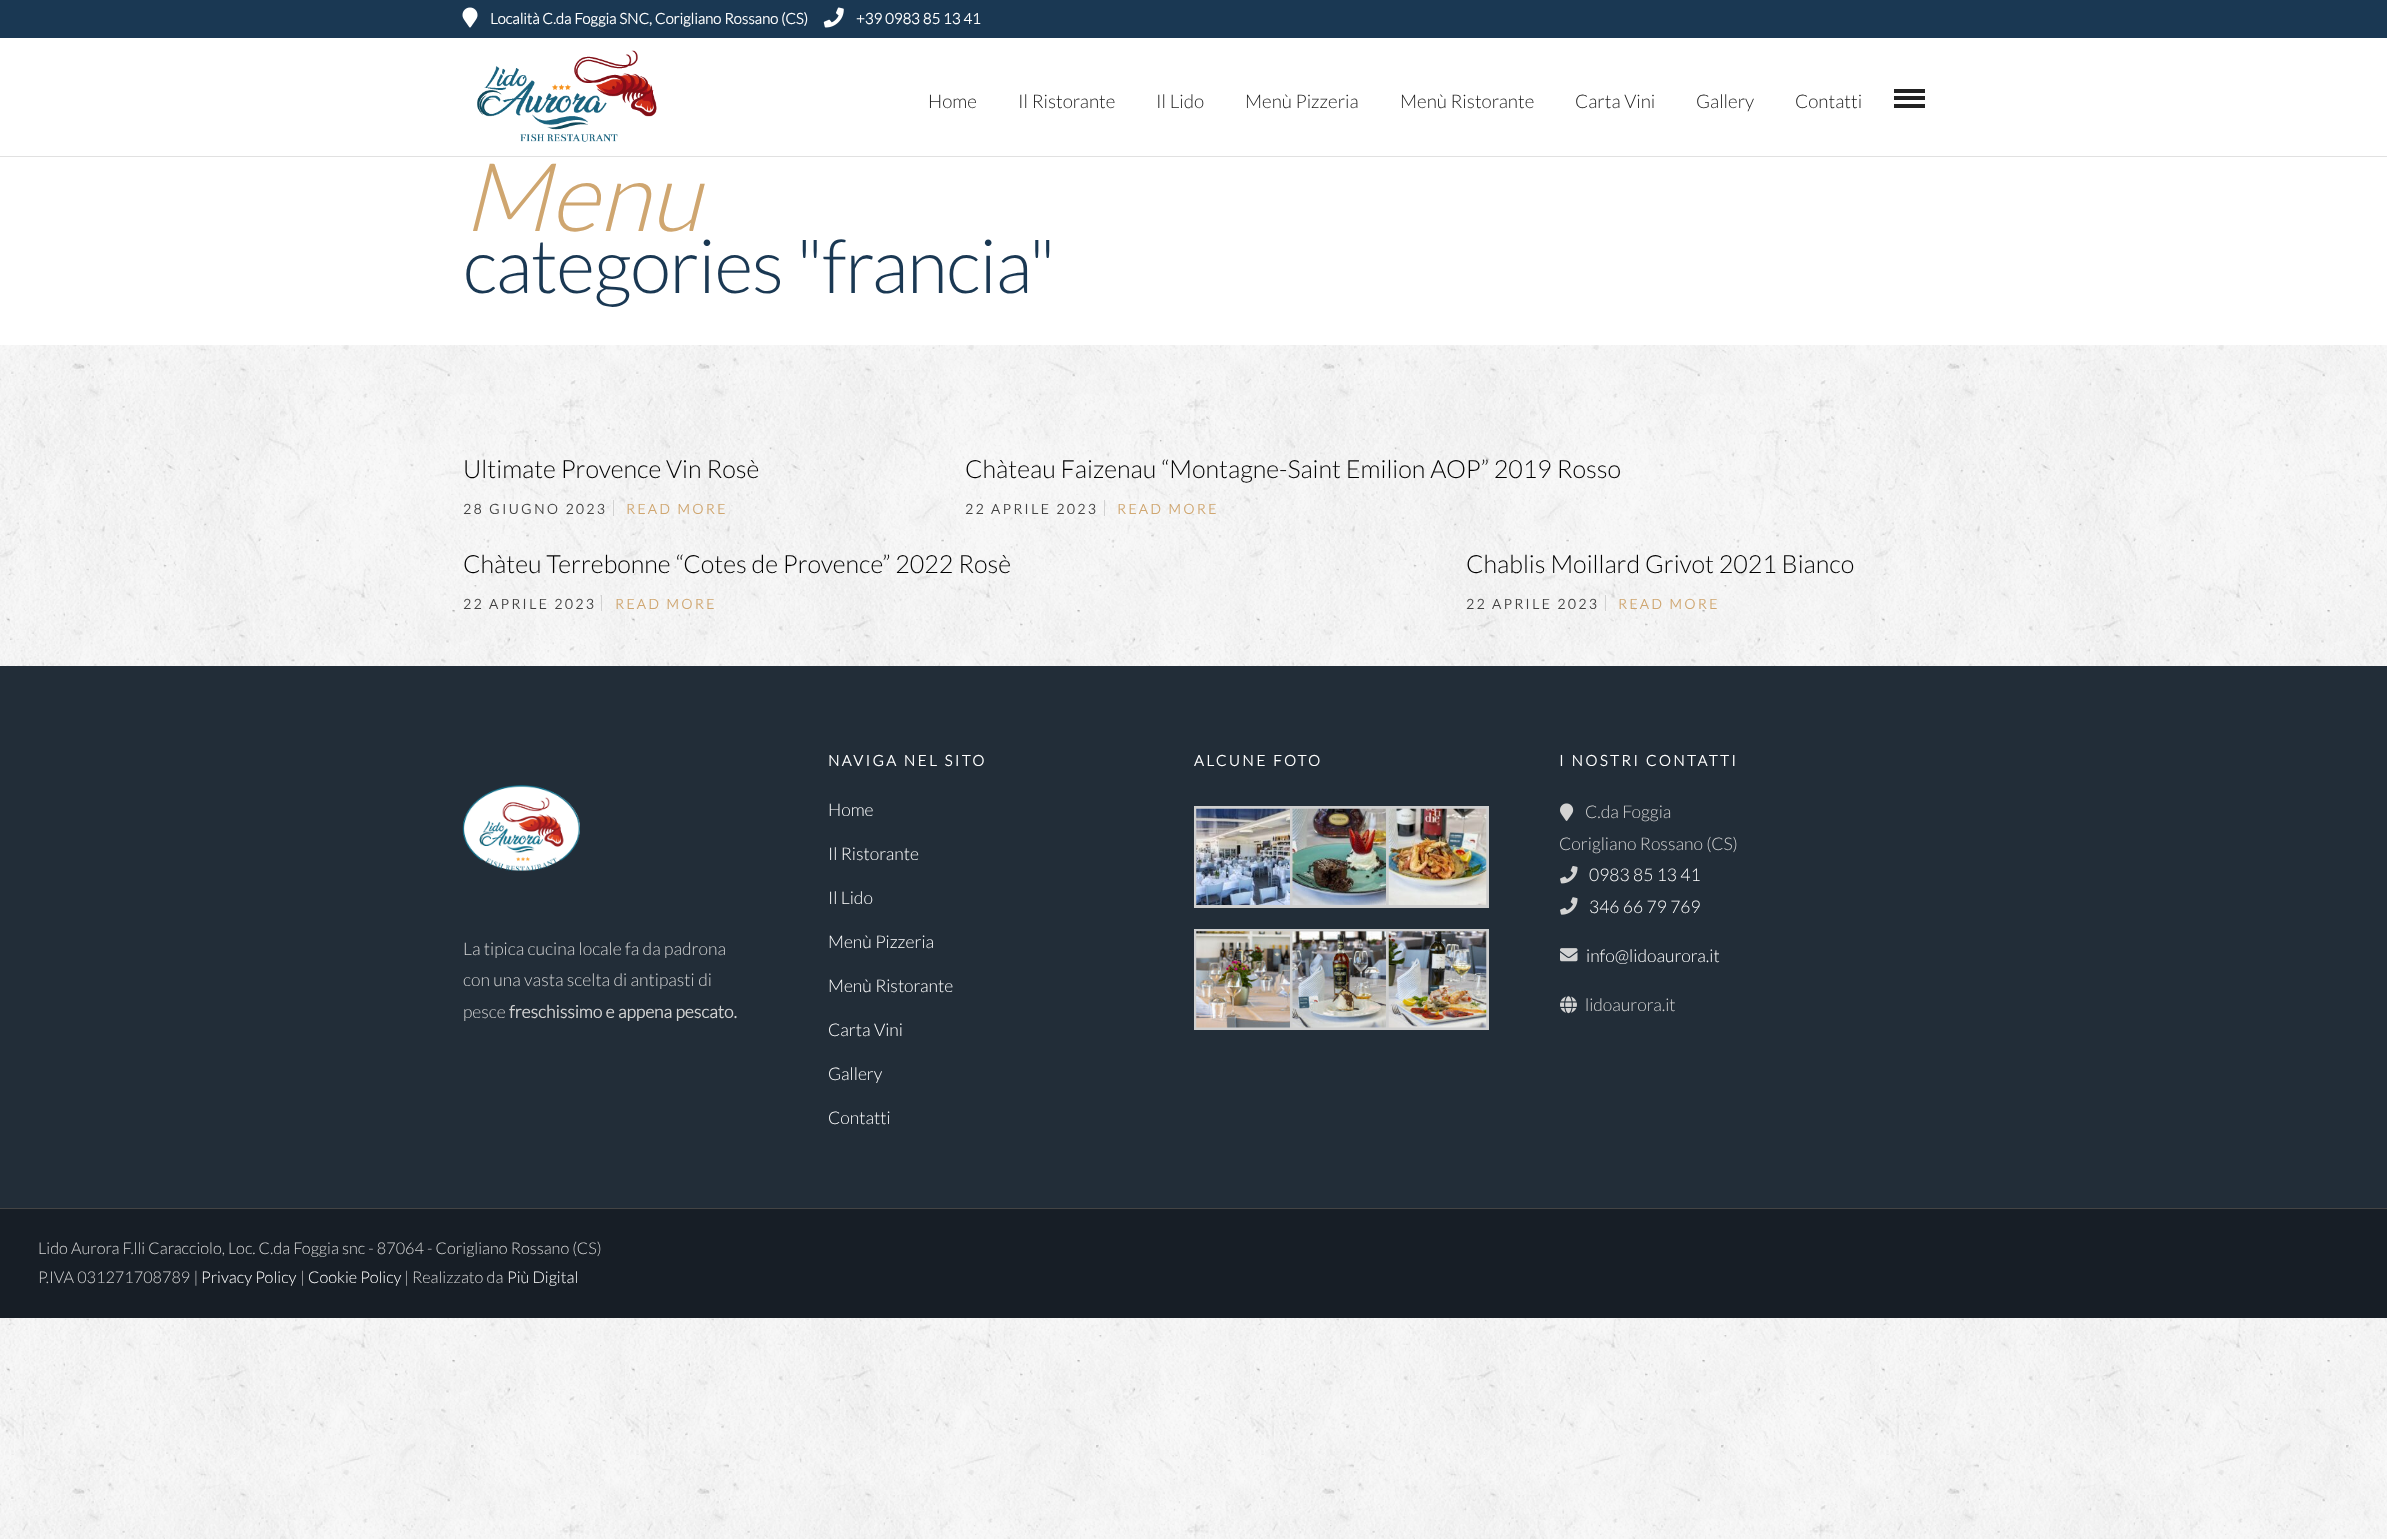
async function draw(canvas) {
  canvas.width = 2387;
  canvas.height = 1539;
  const ctx = canvas.getContext('2d');
  ctx.miterLimit = 4;
  ctx.fontKerning = 'normal';
  function label(s, x, y, font, color) {
    ctx.font = font;
    ctx.fillStyle = color;
    ctx.fillText(s, x, y);
  }
  function rect(x, y, w, h, color) {
    ctx.fillStyle = color;
    ctx.fillRect(x, y, w, h);
  }
  async function image(src, x, y, w, h) {
    const img = new Image();
    img.src = src;
    await img.decode();
    ctx.drawImage(img, x, y, w, h);
  }

  rect(0, 0, 2387, 1539, '#fff');
  await image('assets/img1.png', 0, 345, 2387, 1194);
  rect(0, 0, 2387, 38, '#1a3853');
  await image('assets/img2.png', 462, 7, 16, 21);
  label('Località C.da Foggia SNC, Corigliano Rossano (CS)', 490, 24, 'bold 15px Lato', '#fff');
  await image('assets/img3.png', 823, 7, 21, 21);
  label('+39 0983 85 13 41', 856, 24, 'bold 15px Lato', '#fff');
  rect(0, 156, 2387, 1, '#e1e1e1');
  await image('assets/img4.png', 477, 50, 180, 92);
  label('Home', 928, 108, '300 18.75px Lato', '#222');
  label('Il Ristorante', 1018, 108, '300 18.75px Lato', '#222');
  label('Il Lido', 1156, 108, '300 18.75px Lato', '#222');
  label('Menù Pizzeria', 1245, 108, '300 18.75px Lato', '#222');
  label('Menù Ristorante', 1400, 108, '300 18.75px Lato', '#222');
  label('Carta Vini', 1575, 108, '300 18.75px Lato', '#222');
  label('Gallery', 1696, 108, '300 18.75px Lato', '#222');
  label('Contatti', 1795, 108, '300 18.75px Lato', '#222');
  rect(1894, 89, 31, 4, '#222');
  rect(1894, 96, 31, 4, '#222');
  rect(1894, 104, 31, 4, '#222');
  label('Menu', 463, 231, 'italic 300 95px Lato', '#cfa670');
  ctx.letterSpacing = '-1.25px';
  label('categories "francia"', 463, 293, '300 75px Lato', '#1a3853');
  ctx.letterSpacing = '0px';
  label('Ultimate Provence Vin Rosè', 463, 478, '300 25px Lato', '#000');
  ctx.letterSpacing = '2.5px';
  label('28 GIUGNO 2023', 463, 514, 'bold 13.75px Lato', '#424242');
  label('READ MORE', 626, 514, 'bold 13.75px Lato', '#cfa670');
  rect(613, 500, 1, 16, '#d1d1d1');
  ctx.letterSpacing = '0px';
  label('Chàteau Faizenau “Montagne-Saint Emilion AOP” 2019 Rosso', 965, 478, '300 25px Lato', '#000');
  ctx.letterSpacing = '2.5px';
  label('22 APRILE 2023', 965, 514, 'bold 13.75px Lato', '#424242');
  label('READ MORE', 1117, 514, 'bold 13.75px Lato', '#cfa670');
  rect(1104, 500, 1, 16, '#d1d1d1');
  ctx.letterSpacing = '0px';
  label('Chàteu Terrebonne “Cotes de Provence” 2022 Rosè', 463, 573, '300 25px Lato', '#000');
  ctx.letterSpacing = '2.5px';
  label('22 APRILE 2023', 463, 609, 'bold 13.75px Lato', '#424242');
  label('READ MORE', 615, 609, 'bold 13.75px Lato', '#cfa670');
  rect(601, 595, 1, 16, '#d1d1d1');
  ctx.letterSpacing = '0px';
  label('Chablis Moillard Grivot 2021 Bianco', 1466, 573, '300 25px Lato', '#000');
  ctx.letterSpacing = '2.5px';
  label('22 APRILE 2023', 1466, 609, 'bold 13.75px Lato', '#424242');
  label('READ MORE', 1618, 609, 'bold 13.75px Lato', '#cfa670');
  rect(1605, 595, 1, 16, '#d1d1d1');
  rect(0, 666, 2387, 542, '#222d38');
  await image('assets/img5.png', 462, 785, 118, 87);
  ctx.letterSpacing = '0px';
  label('La tipica cucina locale fa da padrona', 463, 955, '300 17.5px Lato', '#d3d3d3');
  label('con una vasta scelta di antipasti di', 463, 986, '300 17.5px Lato', '#d3d3d3');
  label('pesce', 463, 1018, '300 17.5px Lato', '#d3d3d3');
  label('freschissimo e appena pescato.', 509, 1018, 'bold 17.5px Lato', '#d3d3d3');
  ctx.letterSpacing = '2.5px';
  label('NAVIGA NEL SITO', 828, 766, 'bold 15px Lato', '#fff');
  ctx.letterSpacing = '0px';
  label('Home', 828, 816, '300 17.5px Lato', '#fff');
  label('Il Ristorante', 828, 860, '300 17.5px Lato', '#fff');
  label('Il Lido', 828, 904, '300 17.5px Lato', '#fff');
  label('Menù Pizzeria', 828, 948, '300 17.5px Lato', '#fff');
  label('Menù Ristorante', 828, 992, '300 17.5px Lato', '#fff');
  label('Carta Vini', 828, 1036, '300 17.5px Lato', '#fff');
  label('Gallery', 828, 1080, '300 17.5px Lato', '#fff');
  label('Contatti', 828, 1124, '300 17.5px Lato', '#fff');
  ctx.letterSpacing = '2.5px';
  label('ALCUNE FOTO', 1194, 766, 'bold 15px Lato', '#fff');
  ctx.strokeStyle = '#cfcfcf';
  ctx.lineWidth = 3;
  ctx.strokeRect(1195.5, 807.5, 98, 99);
  await image('assets/img6.png', 1196, 808, 94, 97);
  ctx.strokeRect(1291.5, 807.5, 98, 99);
  await image('assets/img7.png', 1292, 808, 94, 97);
  ctx.strokeRect(1387.5, 807.5, 100, 99);
  await image('assets/img8.png', 1388, 808, 99, 97);
  ctx.strokeRect(1195.5, 930.5, 98, 98);
  await image('assets/img9.png', 1196, 931, 94, 97);
  ctx.strokeRect(1291.5, 930.5, 98, 98);
  await image('assets/img10.png', 1292, 931, 94, 97);
  ctx.strokeRect(1387.5, 930.5, 100, 98);
  await image('assets/img11.png', 1388, 931, 99, 97);
  label('I NOSTRI CONTATTI', 1559, 766, 'bold 15px Lato', '#fff');
  await image('assets/img12.png', 1560, 803, 14, 18);
  ctx.letterSpacing = '0px';
  label('C.da Foggia', 1585, 818, '300 17.5px Lato', '#d3d3d3');
  label('Corigliano Rossano (CS)', 1559, 850, '300 17.5px Lato', '#d3d3d3');
  await image('assets/img13.png', 1560, 866, 18, 18);
  label('0983 85 13 41', 1589, 881, '300 17.5px Lato', '#fff');
  await image('assets/img14.png', 1560, 897, 18, 18);
  label('346 66 79 769', 1589, 913, '300 17.5px Lato', '#fff');
  await image('assets/img15.png', 1560, 948, 18, 14);
  label('info@lidoaurora.it', 1586, 962, '300 17.5px Lato', '#fff');
  await image('assets/img16.png', 1560, 996, 17, 18);
  label('lidoaurora.it', 1585, 1011, '300 17.5px Lato', '#d3d3d3');
  rect(0, 1209, 2387, 109, '#171e26');
  rect(0, 1208, 2387, 1, '#444');
  label('Lido Aurora F.lli Caracciolo, Loc. C.da Foggia snc - 87064 - Corigliano Rossano (CS)', 38, 1254, '300 16.25px Lato', '#d3d3d3');
  label('P.IVA 031271708789 |', 38, 1283, '300 16.25px Lato', '#d3d3d3');
  label('Privacy Policy', 201, 1283, '300 16.25px Lato', '#fff');
  label('|', 300, 1283, '300 16.25px Lato', '#d3d3d3');
  label('Cookie Policy', 308, 1283, '300 16.25px Lato', '#fff');
  label('| Realizzato da', 404, 1283, '300 16.25px Lato', '#d3d3d3');
  label('Più Digital', 507, 1283, '300 16.25px Lato', '#fff');
}

draw(document.querySelector('canvas'));
